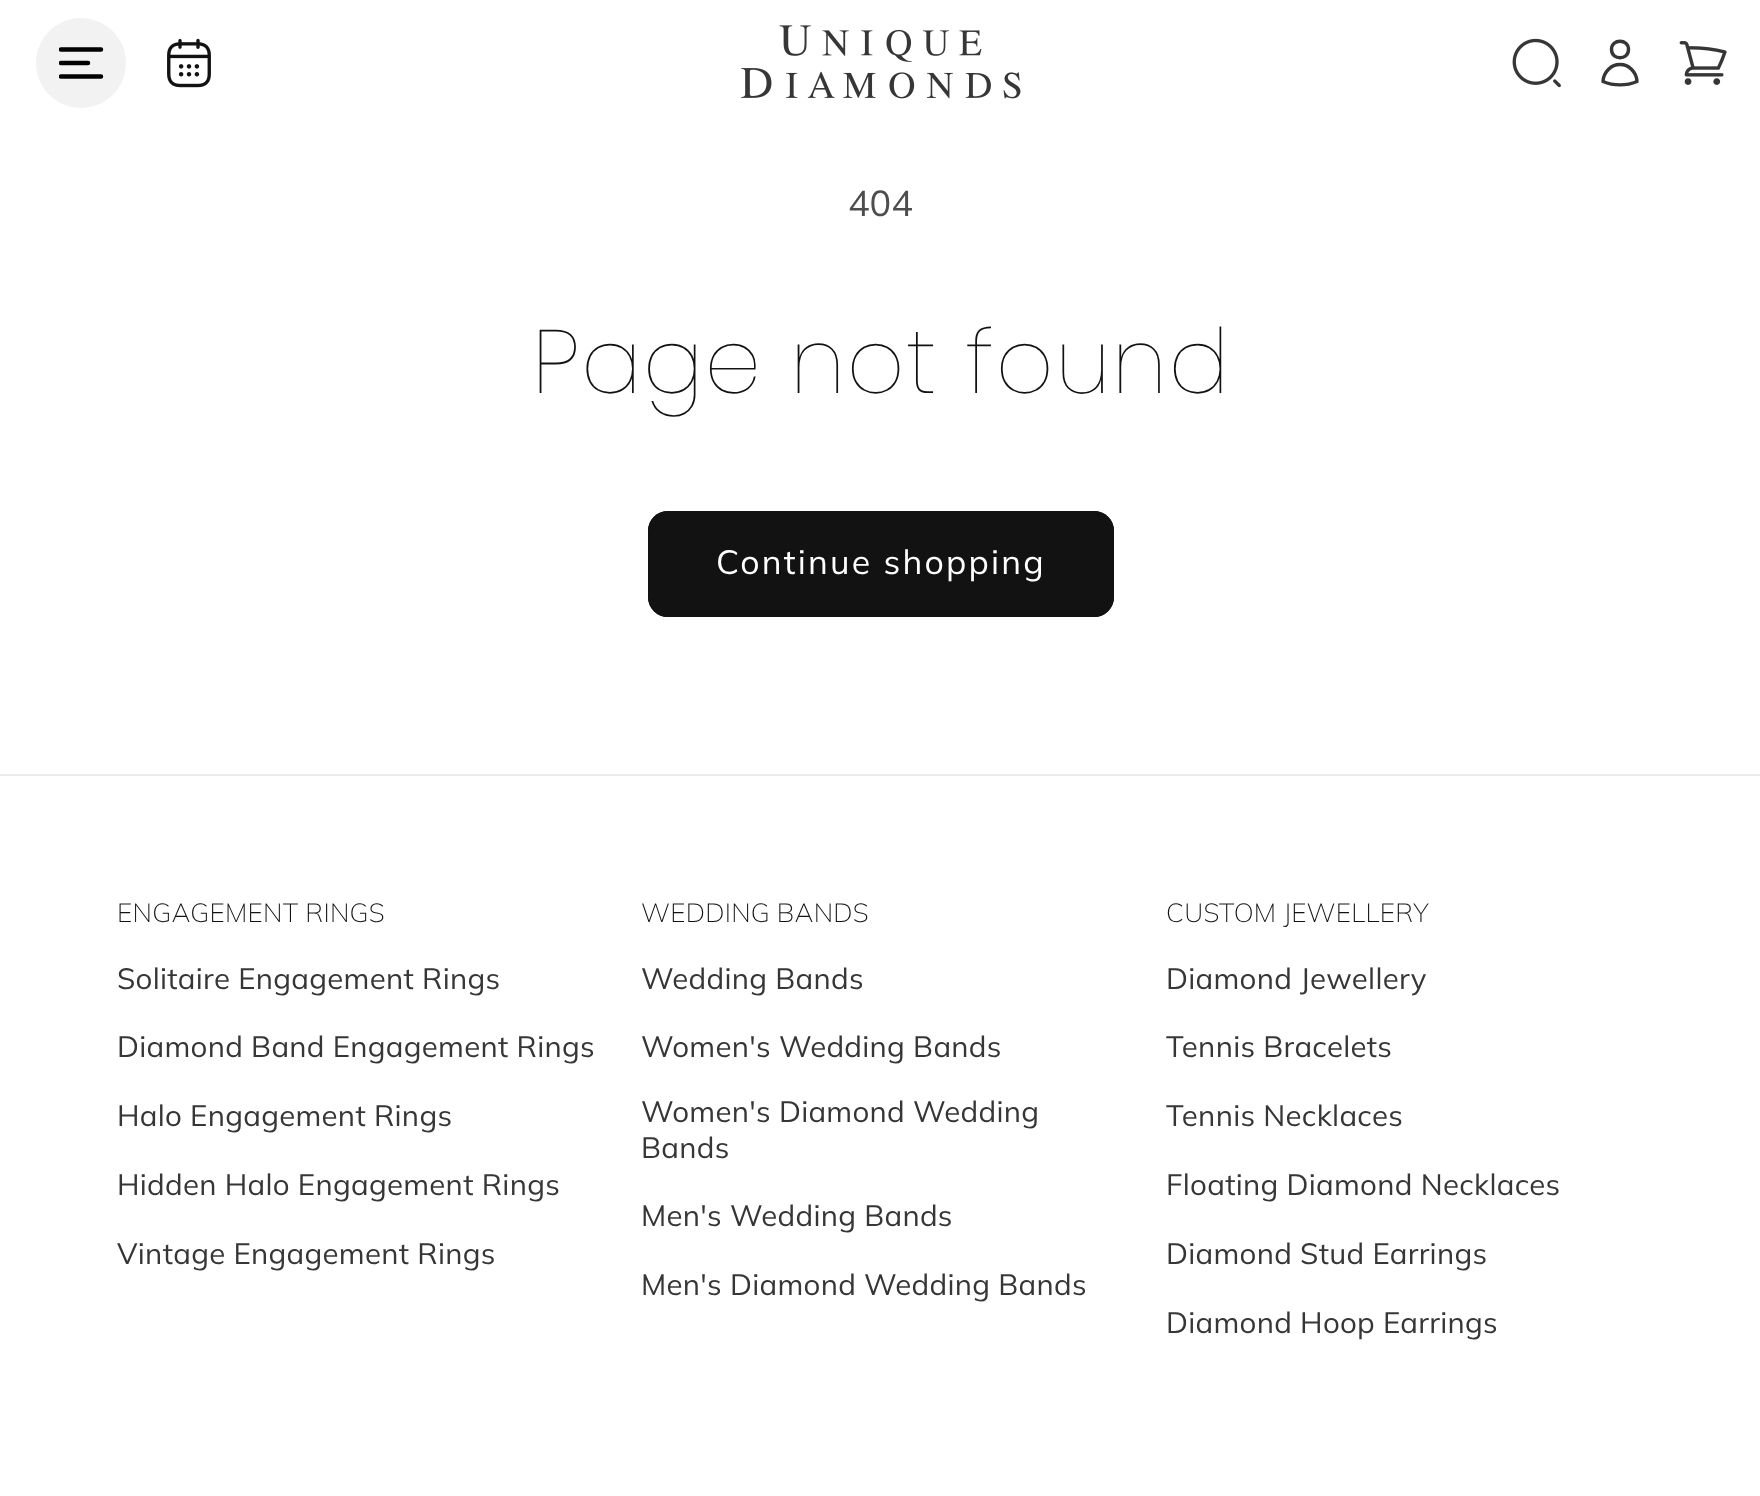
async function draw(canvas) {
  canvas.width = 1760;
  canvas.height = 1496;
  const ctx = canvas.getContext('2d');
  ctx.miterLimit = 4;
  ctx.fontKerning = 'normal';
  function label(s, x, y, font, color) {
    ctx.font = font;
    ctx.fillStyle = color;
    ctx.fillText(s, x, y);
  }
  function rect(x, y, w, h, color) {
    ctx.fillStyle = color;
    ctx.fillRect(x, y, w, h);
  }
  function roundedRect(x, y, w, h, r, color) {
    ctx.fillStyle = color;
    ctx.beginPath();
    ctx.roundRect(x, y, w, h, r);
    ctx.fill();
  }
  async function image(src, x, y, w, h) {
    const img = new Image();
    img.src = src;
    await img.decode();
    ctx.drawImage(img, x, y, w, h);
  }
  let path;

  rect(0, 0, 1760, 1496, '#fff');
  ctx.fillStyle = '#f2f2f2';
  ctx.beginPath();
  ctx.arc(81, 63, 45, 0, 2 * Math.PI);
  ctx.fill();
  ctx.save();
  ctx.beginPath();
  ctx.rect(59, 47, 45, 32);
  ctx.clip();
  path = new Path2D('M61 63H88M61 49.5H101M61 76.5H101');
  ctx.strokeStyle = '#000';
  ctx.lineWidth = 4.5;
  ctx.lineCap = 'round';
  ctx.lineJoin = 'round';
  ctx.stroke(path);
  ctx.restore();
  await image('assets/img1.png', 167, 38, 44, 50);
  await image('assets/img2.png', 741, 25, 280, 74);
  await image('assets/img3.png', 1512, 38, 49, 50);
  path = new Path2D('M1628.5 49.5C1628.5 60.5 1611.5 60.5 1611.5 49.5C1611.5 38.5 1628.5 38.5 1628.5 49.5ZM1603 81.5C1603.5 72 1611 64.5 1620 64.5C1629 64.5 1636.5 72 1637 81.5C1626.5 86 1613.5 86 1603 81.5Z');
  ctx.strokeStyle = '#363636';
  ctx.lineWidth = 3.4;
  ctx.lineCap = 'round';
  ctx.lineJoin = 'round';
  ctx.stroke(path);
  await image('assets/img4.png', 1679, 41, 48, 44);
  label('404', 848, 216, '36px Mulish', '#4d4d4d');
  ctx.letterSpacing = '1.4px';
  label('Page not found', 532, 393, '200 90px Poppins', '#121212');
  roundedRect(648, 511, 466, 106, 20, '#121212');
  ctx.beginPath();
  ctx.roundRect(649, 512, 464, 104, 19);
  ctx.strokeStyle = '#121212';
  ctx.lineWidth = 2;
  ctx.lineJoin = 'miter';
  ctx.stroke();
  ctx.letterSpacing = '2.25px';
  label('Continue shopping', 716, 574, '33.75px Mulish', '#fff');
  rect(0, 774, 1760, 2, '#ececec');
  ctx.letterSpacing = '0.25px';
  label('ENGAGEMENT RINGS', 117, 922, '200 26.25px Mulish', '#121212');
  ctx.letterSpacing = '0.3px';
  label('Solitaire Engagement Rings', 117, 989, '29.4px Mulish', '#363636');
  label('Diamond Band Engagement Rings', 117, 1057, '29.4px Mulish', '#363636');
  label('Halo Engagement Rings', 117, 1126, '29.4px Mulish', '#363636');
  label('Hidden Halo Engagement Rings', 117, 1195, '29.4px Mulish', '#363636');
  label('Vintage Engagement Rings', 117, 1264, '29.4px Mulish', '#363636');
  ctx.letterSpacing = '0.25px';
  label('WEDDING BANDS', 641, 922, '200 26.25px Mulish', '#121212');
  ctx.letterSpacing = '0.3px';
  label('Wedding Bands', 641, 989, '29.4px Mulish', '#363636');
  label('Women\'s Wedding Bands', 641, 1057, '29.4px Mulish', '#363636');
  label('Women\'s Diamond Wedding', 641, 1122, '29.4px Mulish', '#363636');
  label('Bands', 641, 1158, '29.4px Mulish', '#363636');
  label('Men\'s Wedding Bands', 641, 1226, '29.4px Mulish', '#363636');
  label('Men\'s Diamond Wedding Bands', 641, 1295, '29.4px Mulish', '#363636');
  ctx.letterSpacing = '0.25px';
  label('CUSTOM JEWELLERY', 1166, 922, '200 26.25px Mulish', '#121212');
  ctx.letterSpacing = '0.3px';
  label('Diamond Jewellery', 1166, 989, '29.4px Mulish', '#363636');
  label('Tennis Bracelets', 1166, 1057, '29.4px Mulish', '#363636');
  label('Tennis Necklaces', 1166, 1126, '29.4px Mulish', '#363636');
  label('Floating Diamond Necklaces', 1166, 1195, '29.4px Mulish', '#363636');
  label('Diamond Stud Earrings', 1166, 1264, '29.4px Mulish', '#363636');
  label('Diamond Hoop Earrings', 1166, 1333, '29.4px Mulish', '#363636');
}

draw(document.querySelector('canvas'));
